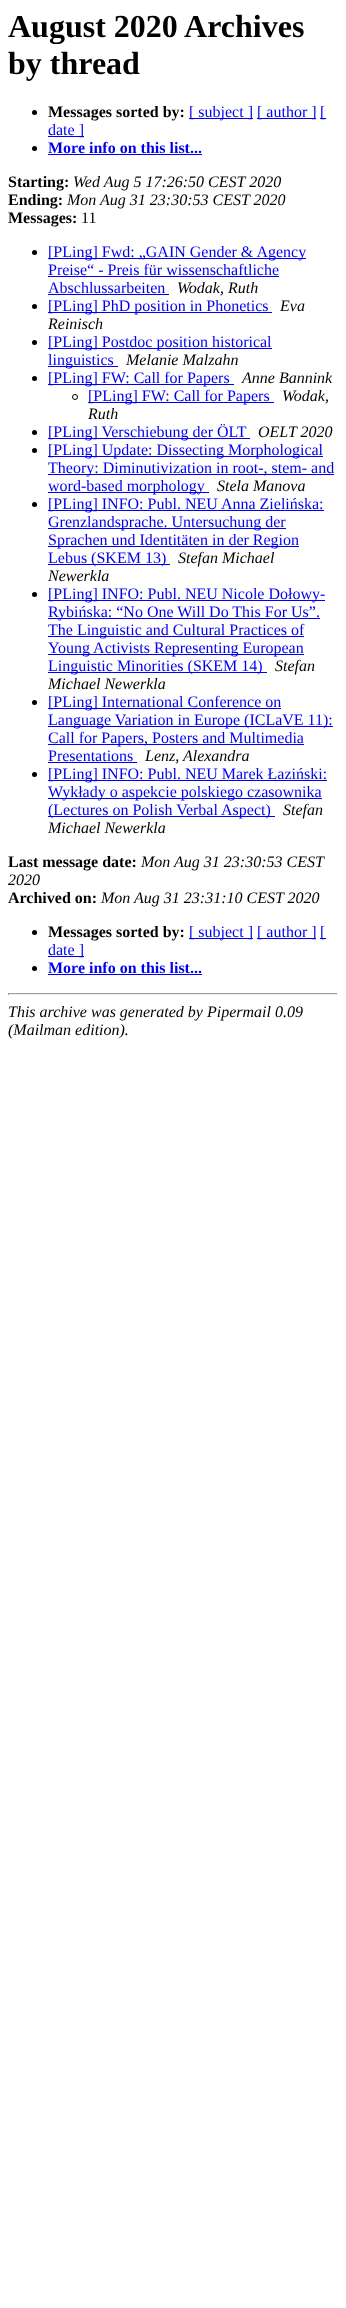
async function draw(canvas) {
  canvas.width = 346;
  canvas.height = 2308;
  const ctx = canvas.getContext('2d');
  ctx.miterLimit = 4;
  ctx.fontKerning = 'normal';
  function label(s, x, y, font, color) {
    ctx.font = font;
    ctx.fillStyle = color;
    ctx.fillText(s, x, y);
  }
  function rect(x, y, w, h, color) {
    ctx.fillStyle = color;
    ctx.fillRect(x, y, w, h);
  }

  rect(0, 0, 346, 2308, '#fff');
  label('August 2020 Archives', 8, 37, 'bold 32px Liberation Serif', '#000');
  label('by thread', 8, 74, 'bold 32px Liberation Serif', '#000');
  ctx.beginPath();
  ctx.arc(34.5, 112.5, 2.5, 0, 2 * Math.PI);
  ctx.fill();
  label('Messages sorted by:', 48, 117, 'bold 16px Liberation Serif', '#000');
  rect(189, 118, 64, 1, '#00e');
  label('[ subject ]', 189, 117, '16px Liberation Serif', '#00e');
  rect(257, 118, 59, 1, '#00e');
  label('[ author ]', 257, 117, '16px Liberation Serif', '#00e');
  rect(320, 118, 6, 1, '#00e');
  label('[', 320, 117, '16px Liberation Serif', '#00e');
  rect(48, 136, 36, 1, '#00e');
  label('date ]', 48, 135, '16px Liberation Serif', '#00e');
  ctx.fillStyle = '#000';
  ctx.beginPath();
  ctx.arc(34.5, 148.5, 2.5, 0, 2 * Math.PI);
  ctx.fill();
  label('More info on this list...', 48, 153, 'bold 16px Liberation Serif', '#00e');
  rect(48, 154, 154, 1, '#00e');
  label('Starting:', 8, 187, 'bold 16px Liberation Serif', '#000');
  label('Wed Aug 5 17:26:50 CEST 2020', 73, 187, 'italic 16px Liberation Serif', '#000');
  label('Ending:', 8, 205, 'bold 16px Liberation Serif', '#000');
  label('Mon Aug 31 23:30:53 CEST 2020', 67, 205, 'italic 16px Liberation Serif', '#000');
  label('Messages:', 8, 223, 'bold 16px Liberation Serif', '#000');
  label('11', 81, 223, '16px Liberation Serif', '#000');
  ctx.beginPath();
  ctx.arc(34.5, 252.5, 2.5, 0, 2 * Math.PI);
  ctx.fill();
  rect(48, 258, 258, 1, '#00e');
  label('[PLing] Fwd: „GAIN Gender & Agency', 48, 257, '16px Liberation Serif', '#00e');
  label('Preise“ - Preis für wissenschaftliche', 48, 275, '16px Liberation Serif', '#00e');
  rect(48, 276, 231, 1, '#00e');
  label('Abschlussarbeiten', 48, 293, '16px Liberation Serif', '#00e');
  rect(48, 294, 121, 1, '#00e');
  label('Wodak, Ruth', 177, 293, 'italic 16px Liberation Serif', '#000');
  ctx.beginPath();
  ctx.arc(34.5, 306.5, 2.5, 0, 2 * Math.PI);
  ctx.fill();
  rect(48, 312, 224, 1, '#00e');
  label('[PLing] PhD position in Phonetics', 48, 311, '16px Liberation Serif', '#00e');
  label('Eva', 280, 311, 'italic 16px Liberation Serif', '#000');
  label('Reinisch', 48, 329, 'italic 16px Liberation Serif', '#000');
  ctx.beginPath();
  ctx.arc(34.5, 342.5, 2.5, 0, 2 * Math.PI);
  ctx.fill();
  rect(48, 348, 224, 1, '#00e');
  label('[PLing] Postdoc position historical', 48, 347, '16px Liberation Serif', '#00e');
  rect(48, 366, 70, 1, '#00e');
  label('linguistics', 48, 365, '16px Liberation Serif', '#00e');
  label('Melanie Malzahn', 126, 365, 'italic 16px Liberation Serif', '#000');
  ctx.beginPath();
  ctx.arc(34.5, 378.5, 2.5, 0, 2 * Math.PI);
  ctx.fill();
  rect(48, 384, 186, 1, '#00e');
  label('[PLing] FW: Call for Papers', 48, 383, '16px Liberation Serif', '#00e');
  label('Anne Bannink', 242, 383, 'italic 16px Liberation Serif', '#000');
  ctx.beginPath();
  ctx.arc(75, 397, 2.5, 0, 2 * Math.PI);
  ctx.strokeStyle = '#000';
  ctx.stroke();
  rect(88, 402, 186, 1, '#00e');
  label('[PLing] FW: Call for Papers', 88, 401, '16px Liberation Serif', '#00e');
  label('Wodak,', 282, 401, 'italic 16px Liberation Serif', '#000');
  label('Ruth', 88, 419, 'italic 16px Liberation Serif', '#000');
  ctx.beginPath();
  ctx.arc(34.5, 432.5, 2.5, 0, 2 * Math.PI);
  ctx.fill();
  rect(48, 438, 202, 1, '#00e');
  label('[PLing] Verschiebung der ÖLT', 48, 437, '16px Liberation Serif', '#00e');
  label('OELT 2020', 258, 437, 'italic 16px Liberation Serif', '#000');
  ctx.beginPath();
  ctx.arc(34.5, 450.5, 2.5, 0, 2 * Math.PI);
  ctx.fill();
  rect(48, 456, 275, 1, '#00e');
  label('[PLing] Update: Dissecting Morphological', 48, 455, '16px Liberation Serif', '#00e');
  rect(48, 474, 286, 1, '#00e');
  label('Theory: Diminutivization in root-, stem- and', 48, 473, '16px Liberation Serif', '#00e');
  rect(48, 492, 161, 1, '#00e');
  label('word-based morphology', 48, 491, '16px Liberation Serif', '#00e');
  label('Stela Manova', 217, 491, 'italic 16px Liberation Serif', '#000');
  ctx.beginPath();
  ctx.arc(34.5, 504.5, 2.5, 0, 2 * Math.PI);
  ctx.fill();
  rect(48, 510, 276, 1, '#00e');
  label('[PLing] INFO: Publ. NEU Anna Zielińska:', 48, 509, '16px Liberation Serif', '#00e');
  rect(48, 528, 238, 1, '#00e');
  label('Grenzlandsprache. Untersuchung der', 48, 527, '16px Liberation Serif', '#00e');
  rect(48, 546, 251, 1, '#00e');
  label('Sprachen und Identitäten in der Region', 48, 545, '16px Liberation Serif', '#00e');
  rect(48, 564, 122, 1, '#00e');
  label('Lebus (SKEM 13)', 48, 563, '16px Liberation Serif', '#00e');
  label('Stefan Michael', 178, 563, 'italic 16px Liberation Serif', '#000');
  label('Newerkla', 48, 581, 'italic 16px Liberation Serif', '#000');
  ctx.beginPath();
  ctx.arc(34.5, 594.5, 2.5, 0, 2 * Math.PI);
  ctx.fill();
  rect(48, 600, 277, 1, '#00e');
  label('[PLing] INFO: Publ. NEU Nicole Dołowy-', 48, 599, '16px Liberation Serif', '#00e');
  rect(48, 618, 272, 1, '#00e');
  label('Rybińska: “No One Will Do This For Us”.', 48, 617, '16px Liberation Serif', '#00e');
  rect(48, 636, 256, 1, '#00e');
  label('The Linguistic and Cultural Practices of', 48, 635, '16px Liberation Serif', '#00e');
  rect(48, 654, 256, 1, '#00e');
  label('Young Activists Representing European', 48, 653, '16px Liberation Serif', '#00e');
  rect(48, 672, 219, 1, '#00e');
  label('Linguistic Minorities (SKEM 14)', 48, 671, '16px Liberation Serif', '#00e');
  label('Stefan', 275, 671, 'italic 16px Liberation Serif', '#000');
  label('Michael Newerkla', 48, 689, 'italic 16px Liberation Serif', '#000');
  ctx.beginPath();
  ctx.arc(34.5, 702.5, 2.5, 0, 2 * Math.PI);
  ctx.fill();
  rect(48, 708, 233, 1, '#00e');
  label('[PLing] International Conference on', 48, 707, '16px Liberation Serif', '#00e');
  rect(48, 726, 285, 1, '#00e');
  label('Language Variation in Europe (ICLaVE 11):', 48, 725, '16px Liberation Serif', '#00e');
  rect(48, 744, 256, 1, '#00e');
  label('Call for Papers, Posters and Multimedia', 48, 743, '16px Liberation Serif', '#00e');
  label('Presentations', 48, 761, '16px Liberation Serif', '#00e');
  rect(48, 762, 89, 1, '#00e');
  label('Lenz, Alexandra', 145, 761, 'italic 16px Liberation Serif', '#000');
  ctx.beginPath();
  ctx.arc(34.5, 774.5, 2.5, 0, 2 * Math.PI);
  ctx.fill();
  rect(48, 780, 279, 1, '#00e');
  label('[PLing] INFO: Publ. NEU Marek Łaziński:', 48, 779, '16px Liberation Serif', '#00e');
  rect(48, 798, 274, 1, '#00e');
  label('Wykłady o aspekcie polskiego czasownika', 48, 797, '16px Liberation Serif', '#00e');
  rect(48, 816, 227, 1, '#00e');
  label('(Lectures on Polish Verbal Aspect)', 48, 815, '16px Liberation Serif', '#00e');
  label('Stefan', 283, 815, 'italic 16px Liberation Serif', '#000');
  label('Michael Newerkla', 48, 833, 'italic 16px Liberation Serif', '#000');
  label('Last message date:', 8, 867, 'bold 16px Liberation Serif', '#000');
  label('Mon Aug 31 23:30:53 CEST', 141, 867, 'italic 16px Liberation Serif', '#000');
  label('2020', 8, 885, 'italic 16px Liberation Serif', '#000');
  label('Archived on:', 8, 903, 'bold 16px Liberation Serif', '#000');
  label('Mon Aug 31 23:31:10 CEST 2020', 101, 903, 'italic 16px Liberation Serif', '#000');
  ctx.beginPath();
  ctx.arc(34.5, 932.5, 2.5, 0, 2 * Math.PI);
  ctx.fill();
  label('Messages sorted by:', 48, 937, 'bold 16px Liberation Serif', '#000');
  rect(189, 938, 64, 1, '#00e');
  label('[ subject ]', 189, 937, '16px Liberation Serif', '#00e');
  rect(257, 938, 59, 1, '#00e');
  label('[ author ]', 257, 937, '16px Liberation Serif', '#00e');
  rect(320, 938, 6, 1, '#00e');
  label('[', 320, 937, '16px Liberation Serif', '#00e');
  rect(48, 956, 36, 1, '#00e');
  label('date ]', 48, 955, '16px Liberation Serif', '#00e');
  ctx.fillStyle = '#000';
  ctx.beginPath();
  ctx.arc(34.5, 968.5, 2.5, 0, 2 * Math.PI);
  ctx.fill();
  label('More info on this list...', 48, 973, 'bold 16px Liberation Serif', '#00e');
  rect(48, 974, 154, 1, '#00e');
  rect(8, 993, 330, 1, '#9f9f9f');
  rect(337, 993, 1, 2, '#eee');
  rect(8, 994, 330, 1, '#eee');
  rect(8, 993, 1, 2, '#9f9f9f');
  label('This archive was generated by Pipermail 0.09', 8, 1017, 'italic 16px Liberation Serif', '#000');
  label('(Mailman edition).', 8, 1035, 'italic 16px Liberation Serif', '#000');
}

draw(document.querySelector('canvas'));
